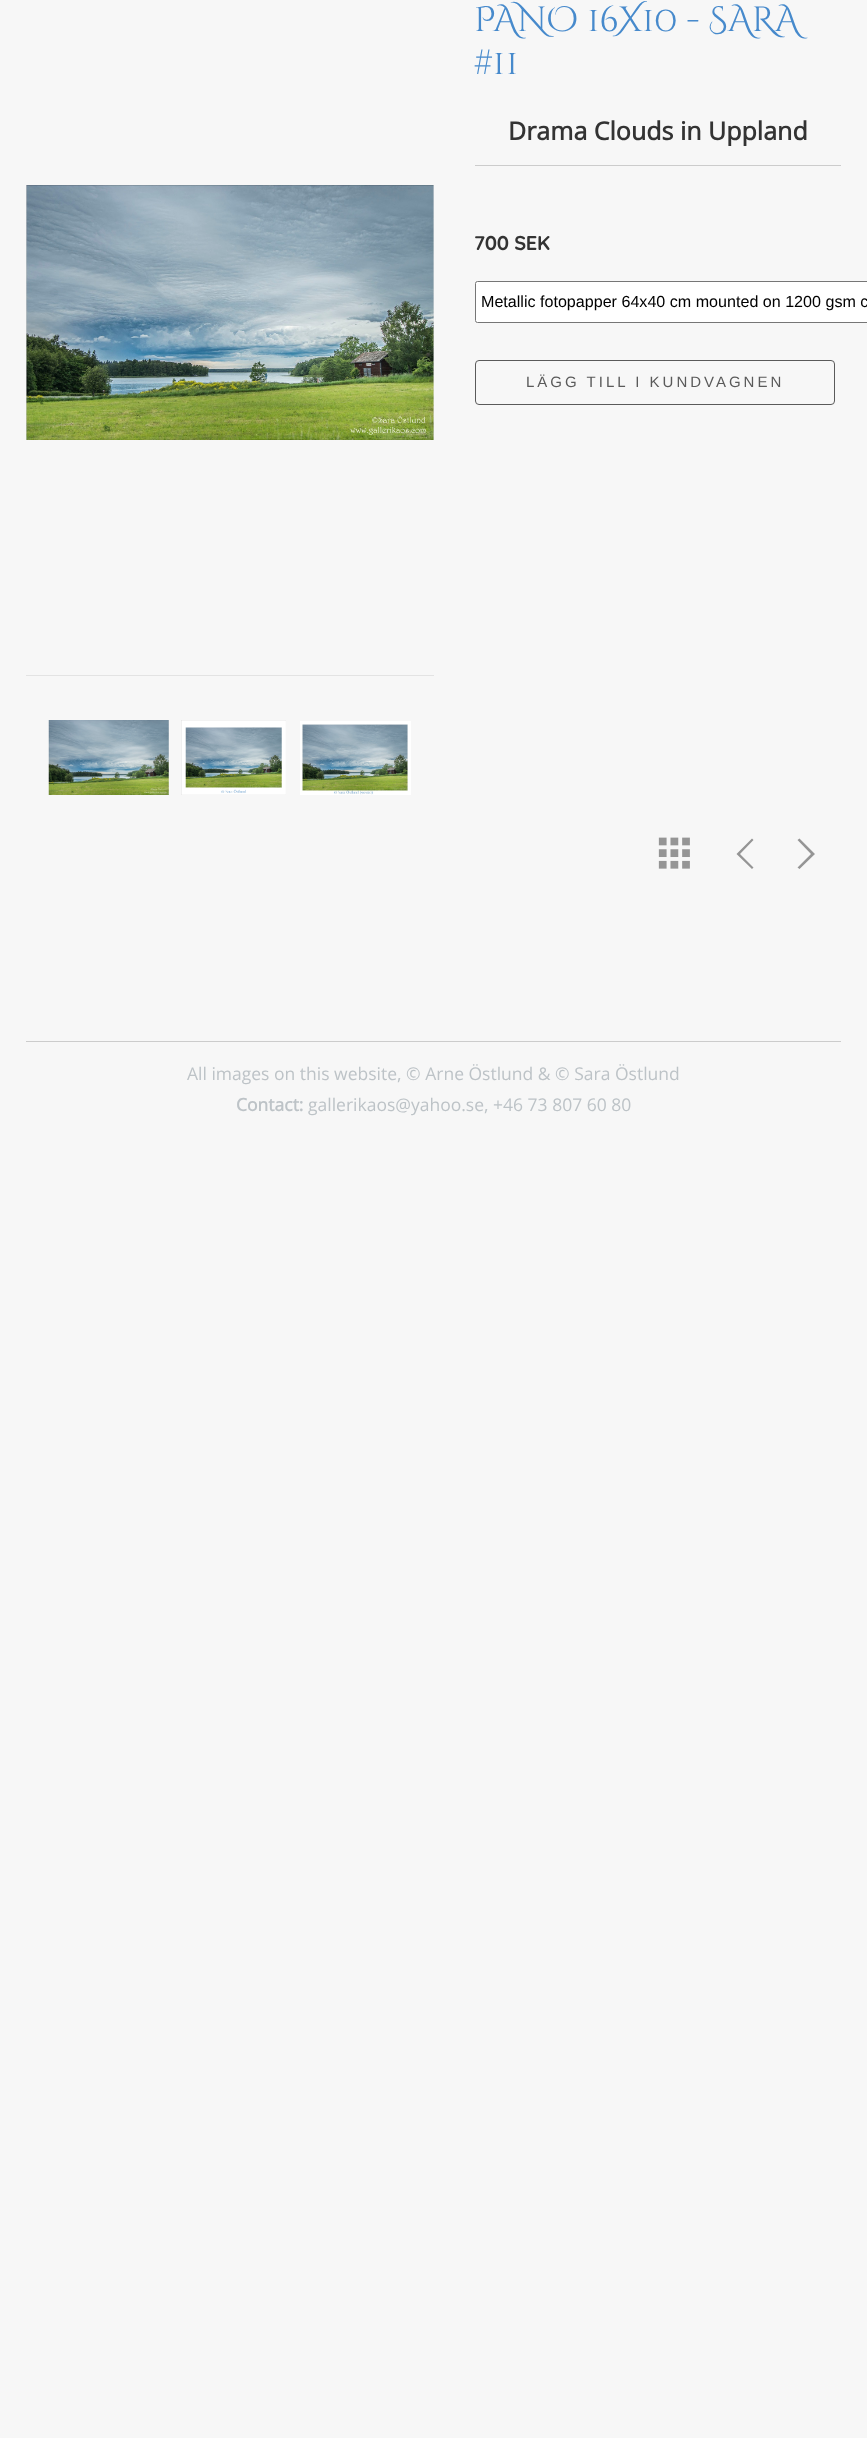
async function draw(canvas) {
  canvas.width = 867;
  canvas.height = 2438;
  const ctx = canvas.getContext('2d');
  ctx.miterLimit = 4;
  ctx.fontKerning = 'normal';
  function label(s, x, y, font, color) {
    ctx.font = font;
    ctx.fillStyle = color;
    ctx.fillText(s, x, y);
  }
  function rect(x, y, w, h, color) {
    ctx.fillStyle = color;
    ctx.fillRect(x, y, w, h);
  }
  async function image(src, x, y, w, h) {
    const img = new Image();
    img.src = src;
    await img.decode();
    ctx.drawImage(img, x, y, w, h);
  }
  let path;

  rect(0, 0, 867, 2438, '#f7f7f7');
  rect(26, 675, 408, 1, '#e3e3e3');
  await image('assets/img1.png', 26, 185, 408, 255);
  await image('assets/img2.png', 48, 720, 121, 75);
  await image('assets/img3.png', 181, 720, 105, 75);
  await image('assets/img4.png', 300, 721, 111, 74);
  label('PANO 16X10 - SARA', 474, 31, '35px Cinzel Decorative', '#478acc');
  label('#11', 474, 74, '35px Cinzel Decorative', '#478acc');
  label('Drama Clouds in Uppland', 508, 140, 'bold 25px Open Sans', '#333');
  rect(475, 165, 366, 1, '#ccc');
  ctx.letterSpacing = '-0.25px';
  label('700 SEK', 474, 250, 'bold 20px Quicksand', '#333');
  ctx.fillStyle = '#fff';
  ctx.beginPath();
  ctx.roundRect(475.5, 281.5, 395, 41, 2);
  ctx.fill();
  ctx.strokeStyle = '#767676';
  ctx.stroke();
  ctx.letterSpacing = '0px';
  label('Metallic fotopapper 64x40 cm mounted on 1200 gsm c', 481, 307, '16.1px Liberation Sans', '#000');
  ctx.beginPath();
  ctx.roundRect(475.5, 360.5, 359, 44, 3.5);
  ctx.strokeStyle = '#5a5a5a';
  ctx.stroke();
  ctx.letterSpacing = '3px';
  label('LÄGG TILL I KUNDVAGNEN', 526, 387, '15px Liberation Sans', '#5a5a5a');
  await image('assets/img5.png', 658, 837, 32, 32);
  ctx.fillStyle = '#959595';
  path = new Path2D('M752 869L736.5 854L752 838.5L753.5 840L740 854L753.5 867.5Z');
  ctx.fill(path);
  path = new Path2D('M815 854L799.5 869L797.5 867.5L811 854L797.5 840L799.5 838.5Z');
  ctx.fill(path);
  rect(26, 1041, 815, 1, '#ccc');
  ctx.letterSpacing = '0px';
  label('All images on this website, © Arne Östlund & © Sara Östlund', 187, 1080, '17.5px Open Sans', '#bdc3c7');
  label('Contact:', 236, 1111, 'bold 17.5px Open Sans', '#bdc3c7');
  label('gallerikaos@yahoo.se, +46 73 807 60 80', 308, 1111, '17.5px Open Sans', '#bdc3c7');
}

draw(document.querySelector('canvas'));
